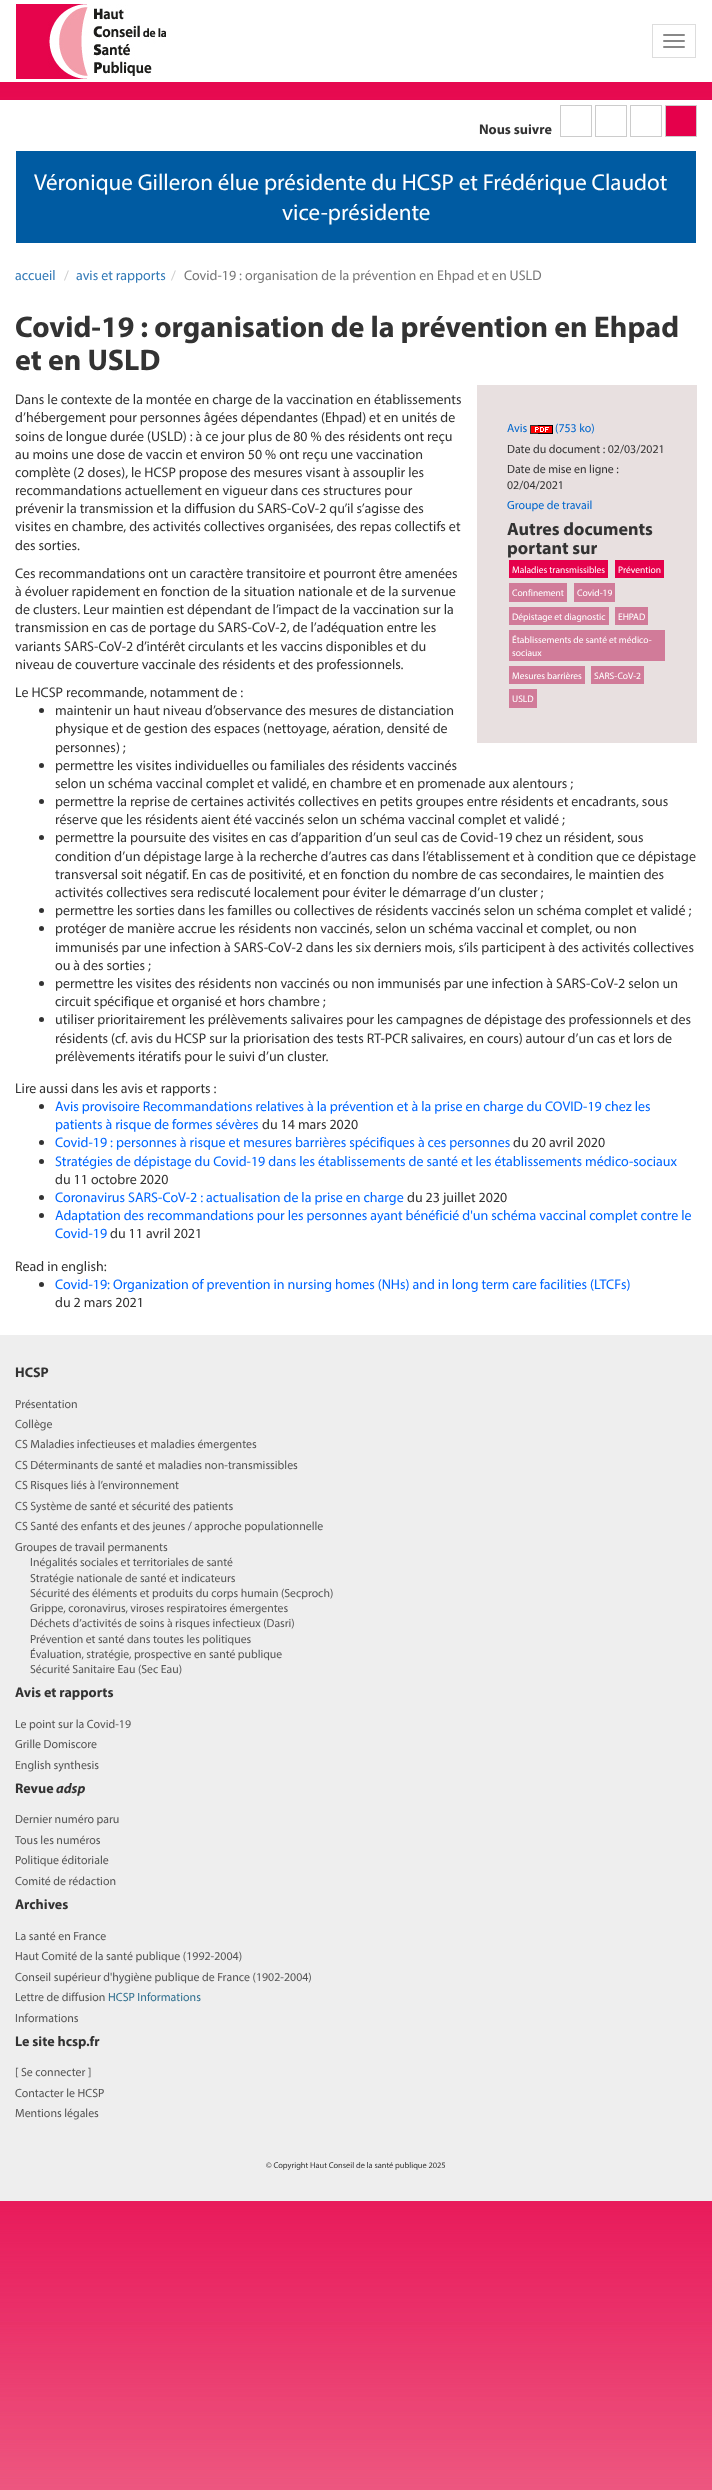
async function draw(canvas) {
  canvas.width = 712;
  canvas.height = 2490;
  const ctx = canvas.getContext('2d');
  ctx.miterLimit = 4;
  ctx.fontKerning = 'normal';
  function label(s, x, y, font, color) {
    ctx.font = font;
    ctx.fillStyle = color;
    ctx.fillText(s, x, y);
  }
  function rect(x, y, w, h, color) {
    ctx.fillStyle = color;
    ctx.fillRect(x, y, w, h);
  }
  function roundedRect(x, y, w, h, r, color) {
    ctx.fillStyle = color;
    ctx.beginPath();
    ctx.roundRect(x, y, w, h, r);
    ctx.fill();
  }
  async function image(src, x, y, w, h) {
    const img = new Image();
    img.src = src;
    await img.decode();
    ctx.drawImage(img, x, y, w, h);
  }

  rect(0, 0, 712, 2490, '#fff');
  await image('assets/img1.png', 0, 82, 712, 2408);
  await image('assets/img2.png', 16, 4, 150, 75);
  ctx.strokeStyle = '#ddd';
  ctx.strokeRect(652.5, 24.5, 43, 33);
  roundedRect(663, 34, 22, 2, 1, '#888');
  roundedRect(663, 40, 22, 2, 1, '#888');
  roundedRect(663, 46, 22, 2, 1, '#888');
  rect(0, 100, 712, 1235, '#fff');
  label('Nous suivre', 479, 134, 'bold 14px Myriad', '#333');
  ctx.strokeStyle = '#ccc';
  ctx.strokeRect(560.5, 105.5, 31, 31);
  ctx.strokeRect(595.5, 105.5, 31, 31);
  ctx.strokeRect(630.5, 105.5, 31, 31);
  ctx.fillStyle = '#e5004b';
  ctx.beginPath();
  ctx.rect(665.5, 105.5, 31, 31);
  ctx.fill();
  ctx.stroke();
  rect(16, 151, 680, 92, '#005ba2');
  label('Véronique Gilleron élue présidente du HCSP et Frédérique Claudot', 34, 190, '23px Myriad', '#fff');
  label('vice-présidente', 282, 220, '23px Myriad', '#fff');
  label('accueil', 15, 280, '14px Myriad', '#337ab7');
  label('/', 64, 280, '14px Myriad', '#ccc');
  label('avis et rapports', 76, 280, '14px Myriad', '#337ab7');
  label('/', 171, 280, '14px Myriad', '#ccc');
  label('Covid-19 : organisation de la prévention en Ehpad et en USLD', 184, 280, '14px Myriad', '#777');
  label('Covid-19 : organisation de la prévention en Ehpad', 15, 337, 'bold 30px Myriad', '#333');
  label('et en USLD', 15, 370, 'bold 30px Myriad', '#333');
  label('Dans le contexte de la montée en charge de la vaccination en établissements', 15, 404, '14px Myriad', '#333');
  label('d’hébergement pour personnes âgées dépendantes (Ehpad) et en unités de', 15, 422, '14px Myriad', '#333');
  label('soins de longue durée (USLD) : à ce jour plus de 80 % des résidents ont reçu', 15, 441, '14px Myriad', '#333');
  label('au moins une dose de vaccin et environ 50 % ont reçu une vaccination', 15, 459, '14px Myriad', '#333');
  label('complète (2 doses), le HCSP propose des mesures visant à assouplir les', 15, 477, '14px Myriad', '#333');
  label('recommandations actuellement en vigueur dans ces structures pour', 15, 495, '14px Myriad', '#333');
  label('prévenir la transmission et la diffusion du SARS-CoV-2 qu’il s’agisse des', 15, 513, '14px Myriad', '#333');
  label('visites en chambre, des activités collectives organisées, des repas collectifs et', 15, 531, '14px Myriad', '#333');
  label('des sorties.', 15, 550, '14px Myriad', '#333');
  label('Ces recommandations ont un caractère transitoire et pourront être amenées', 15, 578, '14px Myriad', '#333');
  label('à évoluer rapidement en fonction de la situation nationale et de la survenue', 15, 596, '14px Myriad', '#333');
  label('de clusters. Leur maintien est dépendant de l’impact de la vaccination sur la', 15, 614, '14px Myriad', '#333');
  label('transmission en cas de portage du SARS-CoV-2, de l’adéquation entre les', 15, 632, '14px Myriad', '#333');
  label('variants SARS-CoV-2 d’intérêt circulants et les vaccins disponibles et du', 15, 651, '14px Myriad', '#333');
  label('niveau de couverture vaccinale des résidents et des professionnels.', 15, 669, '14px Myriad', '#333');
  label('Le HCSP recommande, notamment de :', 15, 697, '14px Myriad', '#333');
  ctx.beginPath();
  ctx.arc(41.5, 710.5, 2.5, 0, 2 * Math.PI);
  ctx.fill();
  label('maintenir un haut niveau d’observance des mesures de distanciation', 55, 715, '14px Myriad', '#333');
  label('physique et de gestion des espaces (nettoyage, aération, densité de', 55, 733, '14px Myriad', '#333');
  label('personnes) ;', 55, 752, '14px Myriad', '#333');
  ctx.beginPath();
  ctx.arc(41.5, 765.5, 2.5, 0, 2 * Math.PI);
  ctx.fill();
  label('permettre les visites individuelles ou familiales des résidents vaccinés', 55, 770, '14px Myriad', '#333');
  label('selon un schéma vaccinal complet et validé, en chambre et en promenade aux alentours ;', 55, 788, '14px Myriad', '#333');
  ctx.beginPath();
  ctx.arc(41.5, 801.5, 2.5, 0, 2 * Math.PI);
  ctx.fill();
  label('permettre la reprise de certaines activités collectives en petits groupes entre résidents et encadrants, sous', 55, 806, '14px Myriad', '#333');
  label('réserve que les résidents aient été vaccinés selon un schéma vaccinal complet et validé ;', 55, 824, '14px Myriad', '#333');
  ctx.beginPath();
  ctx.arc(41.5, 837.5, 2.5, 0, 2 * Math.PI);
  ctx.fill();
  label('permettre la poursuite des visites en cas d’apparition d’un seul cas de Covid-19 chez un résident, sous', 55, 842, '14px Myriad', '#333');
  label('condition d’un dépistage large à la recherche d’autres cas dans l’établissement et à condition que ce dépistage', 55, 861, '14px Myriad', '#333');
  label('transversal soit négatif. En cas de positivité, et en fonction du nombre de cas secondaires, le maintien des', 55, 879, '14px Myriad', '#333');
  label('activités collectives sera rediscuté localement pour éviter le démarrage d’un cluster ;', 55, 897, '14px Myriad', '#333');
  ctx.beginPath();
  ctx.arc(41.5, 910.5, 2.5, 0, 2 * Math.PI);
  ctx.fill();
  label('permettre les sorties dans les familles ou collectives de résidents vaccinés selon un schéma complet et validé ;', 55, 915, '14px Myriad', '#333');
  ctx.beginPath();
  ctx.arc(41.5, 928.5, 2.5, 0, 2 * Math.PI);
  ctx.fill();
  label('protéger de manière accrue les résidents non vaccinés, selon un schéma vaccinal et complet, ou non', 55, 933, '14px Myriad', '#333');
  label('immunisés par une infection à SARS-CoV-2 dans les six derniers mois, s’ils participent à des activités collectives', 55, 952, '14px Myriad', '#333');
  label('ou à des sorties ;', 55, 970, '14px Myriad', '#333');
  ctx.beginPath();
  ctx.arc(41.5, 983.5, 2.5, 0, 2 * Math.PI);
  ctx.fill();
  label('permettre les visites des résidents non vaccinés ou non immunisés par une infection à SARS-CoV-2 selon un', 55, 988, '14px Myriad', '#333');
  label('circuit spécifique et organisé et hors chambre ;', 55, 1006, '14px Myriad', '#333');
  ctx.beginPath();
  ctx.arc(41.5, 1019.5, 2.5, 0, 2 * Math.PI);
  ctx.fill();
  label('utiliser prioritairement les prélèvements salivaires pour les campagnes de dépistage des professionnels et des', 55, 1024, '14px Myriad', '#333');
  label('résidents (cf. avis du HCSP sur la priorisation des tests RT-PCR salivaires, en cours) autour d’un cas et lors de', 55, 1043, '14px Myriad', '#333');
  label('prélèvements itératifs pour le suivi d’un cluster.', 55, 1061, '14px Myriad', '#333');
  rect(477, 385, 220, 358, '#e8e0e0');
  label('Avis', 507, 432, '11.9px Myriad', '#06c');
  await image('assets/img3.png', 530, 425, 23, 9);
  label('(753 ko)', 555, 432, '11.9px Myriad', '#06c');
  label('Date du document : 02/03/2021', 507, 453, '11.9px Myriad', '#333');
  label('Date de mise en ligne :', 507, 473, '11.9px Myriad', '#333');
  label('02/04/2021', 507, 489, '11.9px Myriad', '#333');
  label('Groupe de travail', 507, 509, '11.9px Myriad', '#06c');
  label('Autres documents', 507, 535, 'bold 18px Myriad', '#333');
  label('portant sur', 507, 554, 'bold 18px Myriad', '#333');
  rect(509, 560, 99, 18, '#e5004b');
  label('Maladies transmissibles', 512, 573, '9.5px Myriad', '#fff');
  rect(615, 560, 49, 18, '#e5004b');
  label('Prévention', 618, 573, '9.5px Myriad', '#fff');
  rect(509, 583, 58, 19, '#d17b99');
  label('Confinement', 512, 596, '9.5px Myriad', '#fff');
  rect(574, 583, 41, 19, '#d17b99');
  label('Covid-19', 577, 596, '9.5px Myriad', '#fff');
  rect(509, 607, 100, 18, '#d17b99');
  label('Dépistage et diagnostic', 512, 620, '9.5px Myriad', '#fff');
  rect(615, 607, 33, 18, '#d17b99');
  label('EHPAD', 618, 620, '9.5px Myriad', '#fff');
  rect(509, 630, 156, 31, '#d17b99');
  label('Établissements de santé et médico-', 512, 643, '9.5px Myriad', '#fff');
  label('sociaux', 512, 656, '9.5px Myriad', '#fff');
  rect(509, 666, 76, 18, '#d17b99');
  label('Mesures barrières', 512, 679, '9.5px Myriad', '#fff');
  rect(591, 666, 53, 18, '#d17b99');
  label('SARS-CoV-2', 594, 679, '9.5px Myriad', '#fff');
  rect(509, 689, 28, 19, '#d17b99');
  label('USLD', 512, 702, '9.5px Myriad', '#fff');
  label('Lire aussi dans les avis et rapports :', 15, 1093, '14px Myriad', '#333');
  ctx.beginPath();
  ctx.arc(41.5, 1106.5, 2.5, 0, 2 * Math.PI);
  ctx.fill();
  label('Avis provisoire Recommandations relatives à la prévention et à la prise en charge du COVID-19 chez les', 55, 1111, '14px Myriad', '#06f');
  label('patients à risque de formes sévères', 55, 1129, '14px Myriad', '#06f');
  label('du 14 mars 2020', 262, 1129, '14px Myriad', '#333');
  ctx.beginPath();
  ctx.arc(41.5, 1142.5, 2.5, 0, 2 * Math.PI);
  ctx.fill();
  label('Covid-19 : personnes à risque et mesures barrières spécifiques à ces personnes', 55, 1147, '14px Myriad', '#06f');
  label('du 20 avril 2020', 513, 1147, '14px Myriad', '#333');
  ctx.beginPath();
  ctx.arc(41.5, 1161.5, 2.5, 0, 2 * Math.PI);
  ctx.fill();
  label('Stratégies de dépistage du Covid-19 dans les établissements de santé et les établissements médico-sociaux', 55, 1166, '14px Myriad', '#06f');
  label('du 11 octobre 2020', 55, 1184, '14px Myriad', '#333');
  ctx.beginPath();
  ctx.arc(41.5, 1197.5, 2.5, 0, 2 * Math.PI);
  ctx.fill();
  label('Coronavirus SARS-CoV-2 : actualisation de la prise en charge', 55, 1202, '14px Myriad', '#06f');
  label('du 23 juillet 2020', 407, 1202, '14px Myriad', '#333');
  ctx.beginPath();
  ctx.arc(41.5, 1215.5, 2.5, 0, 2 * Math.PI);
  ctx.fill();
  label('Adaptation des recommandations pour les personnes ayant bénéficié d\'un schéma vaccinal complet contre le', 55, 1220, '14px Myriad', '#06f');
  label('Covid-19', 55, 1238, '14px Myriad', '#06f');
  label('du 11 avril 2021', 110, 1238, '14px Myriad', '#333');
  label('Read in english:', 15, 1271, '14px Myriad', '#333');
  ctx.beginPath();
  ctx.arc(41.5, 1284.5, 2.5, 0, 2 * Math.PI);
  ctx.fill();
  label('Covid-19: Organization of prevention in nursing homes (NHs) and in long term care facilities (LTCFs)', 55, 1289, '14px Myriad', '#06f');
  label('du 2 mars 2021', 55, 1307, '14px Myriad', '#333');
  rect(0, 1335, 712, 866, '#eee');
  label('HCSP', 15, 1377, 'bold 14px Myriad', '#333');
  label('Présentation', 15, 1408, '11.9px Myriad', '#555');
  label('Collège', 15, 1428, '11.9px Myriad', '#555');
  label('CS Maladies infectieuses et maladies émergentes', 15, 1448, '11.9px Myriad', '#555');
  label('CS Déterminants de santé et maladies non-transmissibles', 15, 1469, '11.9px Myriad', '#555');
  label('CS Risques liés à l’environnement', 15, 1489, '11.9px Myriad', '#555');
  label('CS Système de santé et sécurité des patients', 15, 1510, '11.9px Myriad', '#555');
  label('CS Santé des enfants et des jeunes / approche populationnelle', 15, 1530, '11.9px Myriad', '#555');
  label('Groupes de travail permanents', 15, 1551, '11.9px Myriad', '#555');
  label('Inégalités sociales et territoriales de santé', 30, 1566, '11.75px Myriad', '#555');
  label('Stratégie nationale de santé et indicateurs', 30, 1582, '11.75px Myriad', '#555');
  label('Sécurité des éléments et produits du corps humain (Secproch)', 30, 1597, '11.75px Myriad', '#555');
  label('Grippe, coronavirus, viroses respiratoires émergentes', 30, 1612, '11.75px Myriad', '#555');
  label('Déchets d’activités de soins à risques infectieux (Dasri)', 30, 1627, '11.75px Myriad', '#555');
  label('Prévention et santé dans toutes les politiques', 30, 1643, '11.75px Myriad', '#555');
  label('Évaluation, stratégie, prospective en santé publique', 30, 1658, '11.75px Myriad', '#555');
  label('Sécurité Sanitaire Eau (Sec Eau)', 30, 1673, '11.75px Myriad', '#555');
  label('Avis et rapports', 15, 1697, 'bold 14px Myriad', '#333');
  label('Le point sur la Covid-19', 15, 1728, '11.9px Myriad', '#555');
  label('Grille Domiscore', 15, 1748, '11.9px Myriad', '#555');
  label('English synthesis', 15, 1769, '11.9px Myriad', '#555');
  label('Revue', 15, 1793, 'bold 14px Myriad', '#333');
  label('adsp', 56, 1793, 'italic bold 14px Myriad', '#333');
  label('Dernier numéro paru', 15, 1823, '11.9px Myriad', '#555');
  label('Tous les numéros', 15, 1844, '11.9px Myriad', '#555');
  label('Politique éditoriale', 15, 1864, '11.9px Myriad', '#555');
  label('Comité de rédaction', 15, 1885, '11.9px Myriad', '#555');
  label('Archives', 15, 1909, 'bold 14px Myriad', '#333');
  label('La santé en France', 15, 1940, '11.9px Myriad', '#555');
  label('Haut Comité de la santé publique (1992-2004)', 15, 1960, '11.9px Myriad', '#555');
  label('Conseil supérieur d\'hygiène publique de France (1902-2004)', 15, 1981, '11.9px Myriad', '#555');
  label('Lettre de diffusion', 15, 2001, '11.9px Myriad', '#555');
  label('HCSP Informations', 108, 2001, '11.9px Myriad', '#31708f');
  label('Informations', 15, 2022, '11.9px Myriad', '#555');
  label('Le site hcsp.fr', 15, 2046, 'bold 14px Myriad', '#333');
  label('[ Se connecter ]', 15, 2076, '11.9px Myriad', '#555');
  label('Contacter le HCSP', 15, 2097, '11.9px Myriad', '#555');
  label('Mentions légales', 15, 2117, '11.9px Myriad', '#555');
  label('© Copyright Haut Conseil de la santé publique 2025', 266, 2168, '8.4px Myriad', '#333');
}

draw(document.querySelector('canvas'));
